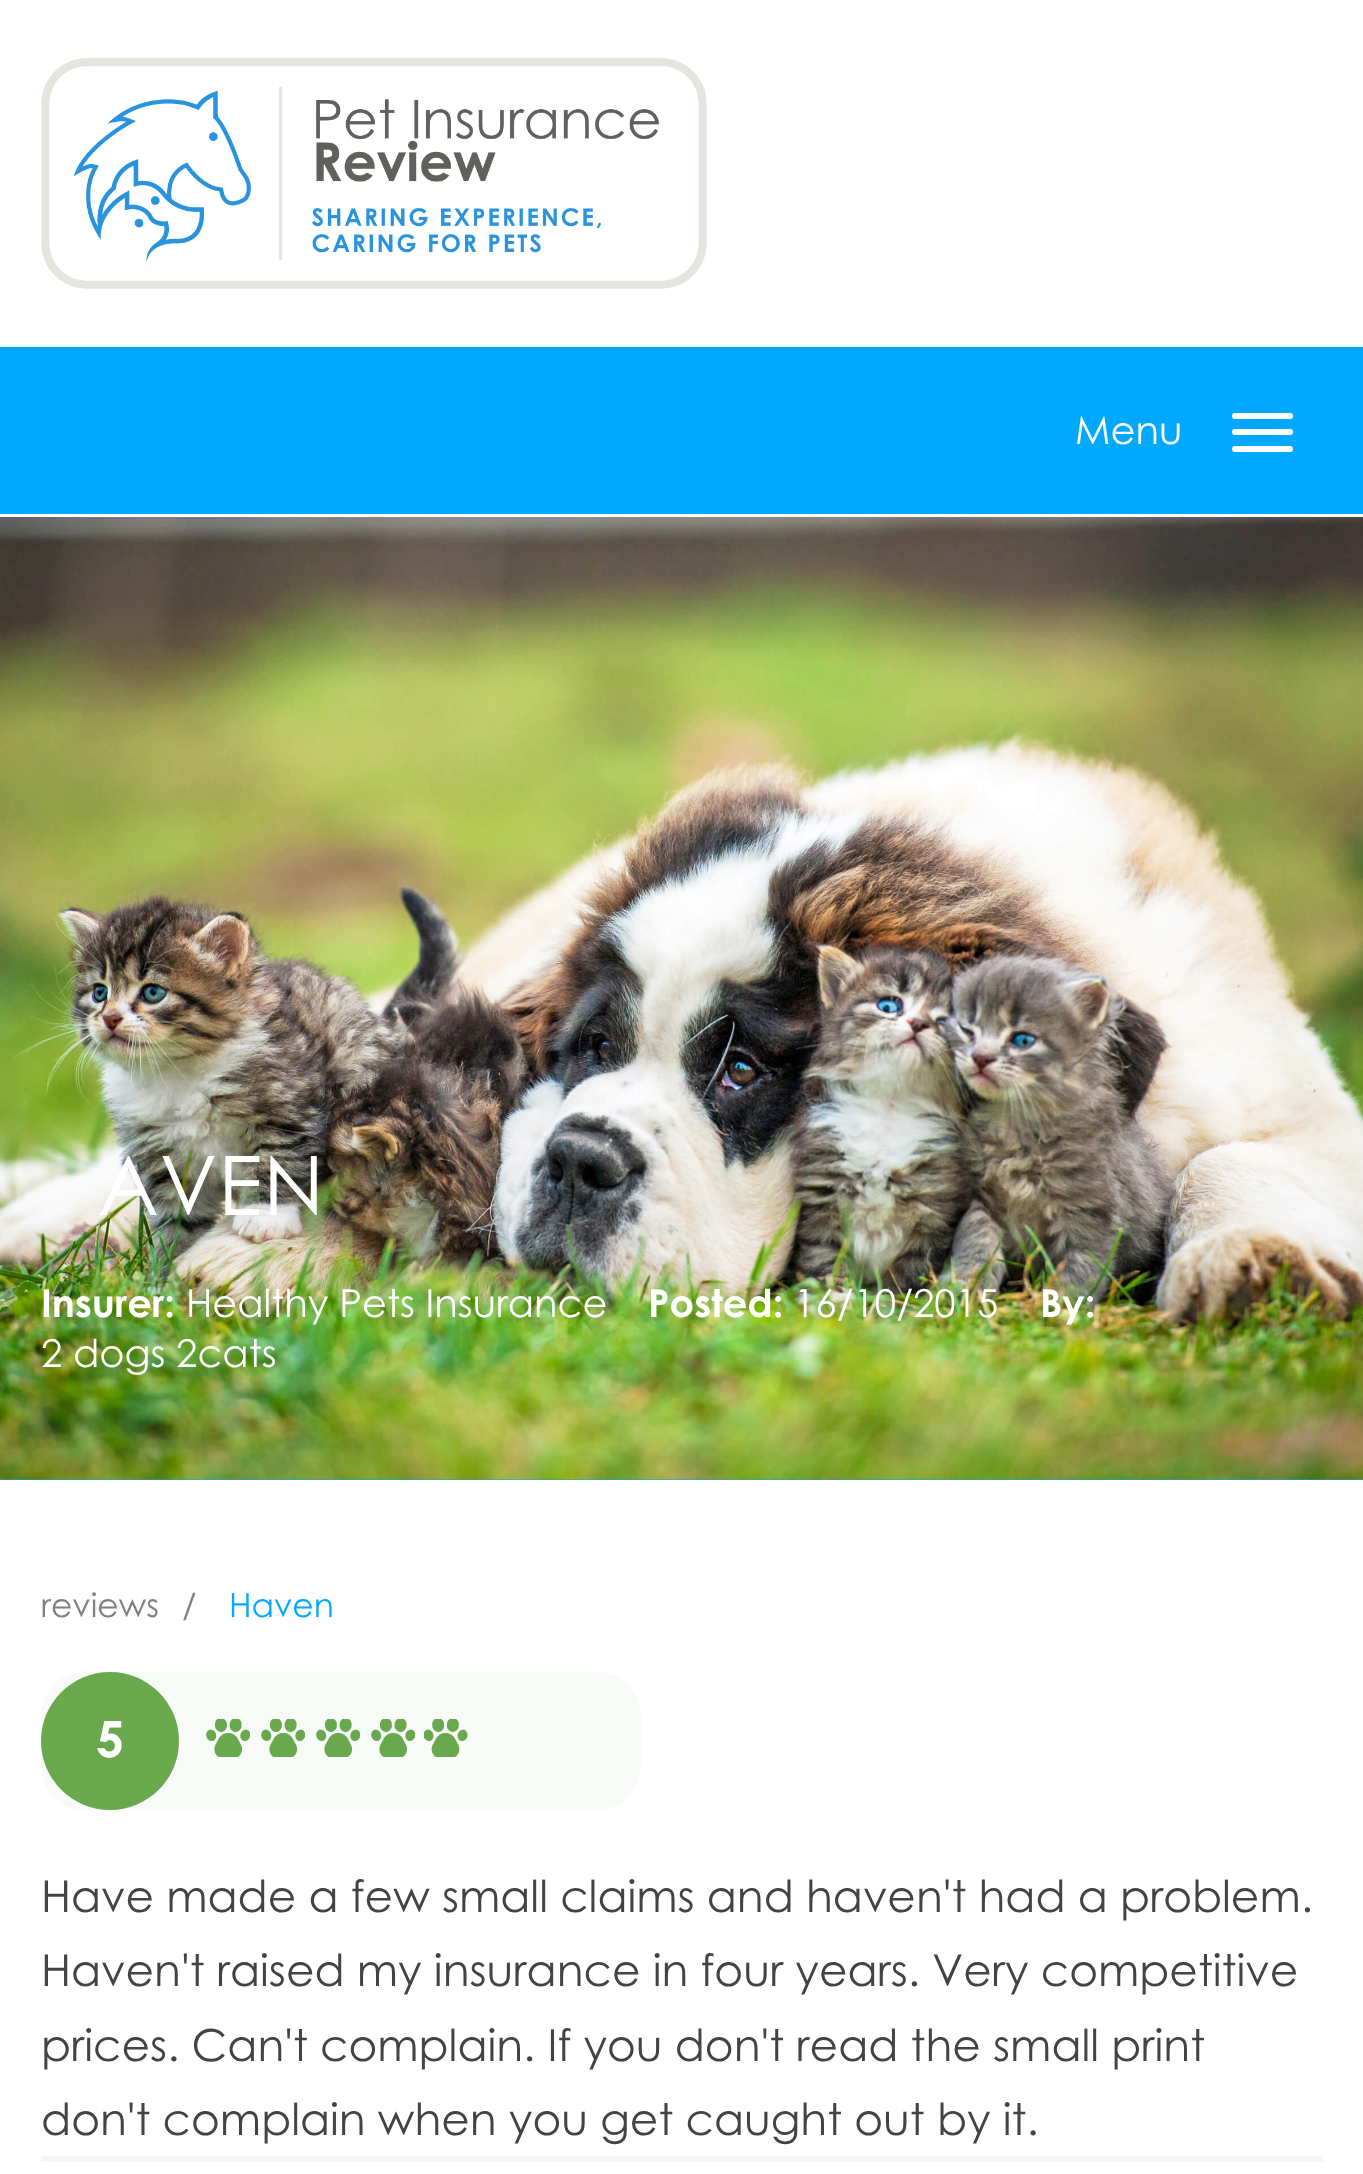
async function draw(canvas) {
  canvas.width = 1363;
  canvas.height = 2174;
  const ctx = canvas.getContext('2d');
  ctx.miterLimit = 4;
  ctx.fontKerning = 'normal';
  function label(s, x, y, font, color) {
    ctx.font = font;
    ctx.fillStyle = color;
    ctx.fillText(s, x, y);
  }
  function rect(x, y, w, h, color) {
    ctx.fillStyle = color;
    ctx.fillRect(x, y, w, h);
  }
  function roundedRect(x, y, w, h, r, color) {
    ctx.fillStyle = color;
    ctx.beginPath();
    ctx.roundRect(x, y, w, h, r);
    ctx.fill();
  }
  async function image(src, x, y, w, h) {
    const img = new Image();
    img.src = src;
    await img.decode();
    ctx.drawImage(img, x, y, w, h);
  }

  rect(0, 0, 1363, 2174, '#fff');
  await image('assets/img1.png', 41, 57, 666, 232);
  rect(0, 347, 1363, 167, '#00a9ff');
  label('Menu', 1075, 444, '38.5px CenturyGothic', '#fff');
  roundedRect(1232, 413, 61, 6, 3, '#fff');
  roundedRect(1232, 429, 61, 6, 3, '#fff');
  roundedRect(1232, 446, 61, 6, 3, '#fff');
  rect(0, 1479, 1363, 1, '#00a9ff');
  await image('assets/img2.png', 0, 517, 1363, 963);
  ctx.letterSpacing = '1px';
  label('AVEN', 98, 1215, '82px CenturyGothic', '#fff');
  ctx.letterSpacing = '0px';
  label('Insurer:', 41, 1317, 'bold 38.5px Century Gothic', '#fff');
  label('Healthy Pets Insurance', 186, 1317, '38.5px CenturyGothic', '#fff');
  label('Posted:', 648, 1317, 'bold 38.5px Century Gothic', '#fff');
  label('16/10/2015', 794, 1317, '38.5px CenturyGothic', '#fff');
  label('By:', 1040, 1317, 'bold 38.5px Century Gothic', '#fff');
  label('2 dogs 2cats', 41, 1367, '38.5px CenturyGothic', '#fff');
  label('reviews', 41, 1617, '33px CenturyGothic', '#818080');
  label('/', 182, 1617, '33px CenturyGothic', '#818080');
  label('Haven', 229, 1617, '33px CenturyGothic', '#00a9ff');
  roundedRect(41, 1672, 600, 138, 44, '#f7faf6');
  ctx.fillStyle = '#6aa84d';
  ctx.beginPath();
  ctx.arc(110, 1741, 69, 0, 2 * Math.PI);
  ctx.fill();
  label('5', 96, 1757, 'bold 50px Century Gothic', '#fff');
  await image('assets/img3.png', 206, 1719, 44, 38);
  await image('assets/img3.png', 261, 1719, 44, 38);
  await image('assets/img3.png', 316, 1719, 44, 38);
  await image('assets/img3.png', 371, 1719, 44, 38);
  await image('assets/img4.png', 424, 1719, 44, 38);
  label('Have made a few small claims and haven\'t had a problem.', 41, 1912, '44px CenturyGothic', '#434343');
  label('Haven\'t raised my insurance in four years. Very competitive', 41, 1986, '44px CenturyGothic', '#434343');
  label('prices. Can\'t complain. If you don\'t read the small print', 41, 2061, '44px CenturyGothic', '#434343');
  label('don\'t complain when you get caught out by it.', 41, 2135, '44px CenturyGothic', '#434343');
  rect(41, 2156, 1282, 6, '#f5f5f5');
}

draw(document.querySelector('canvas'));
